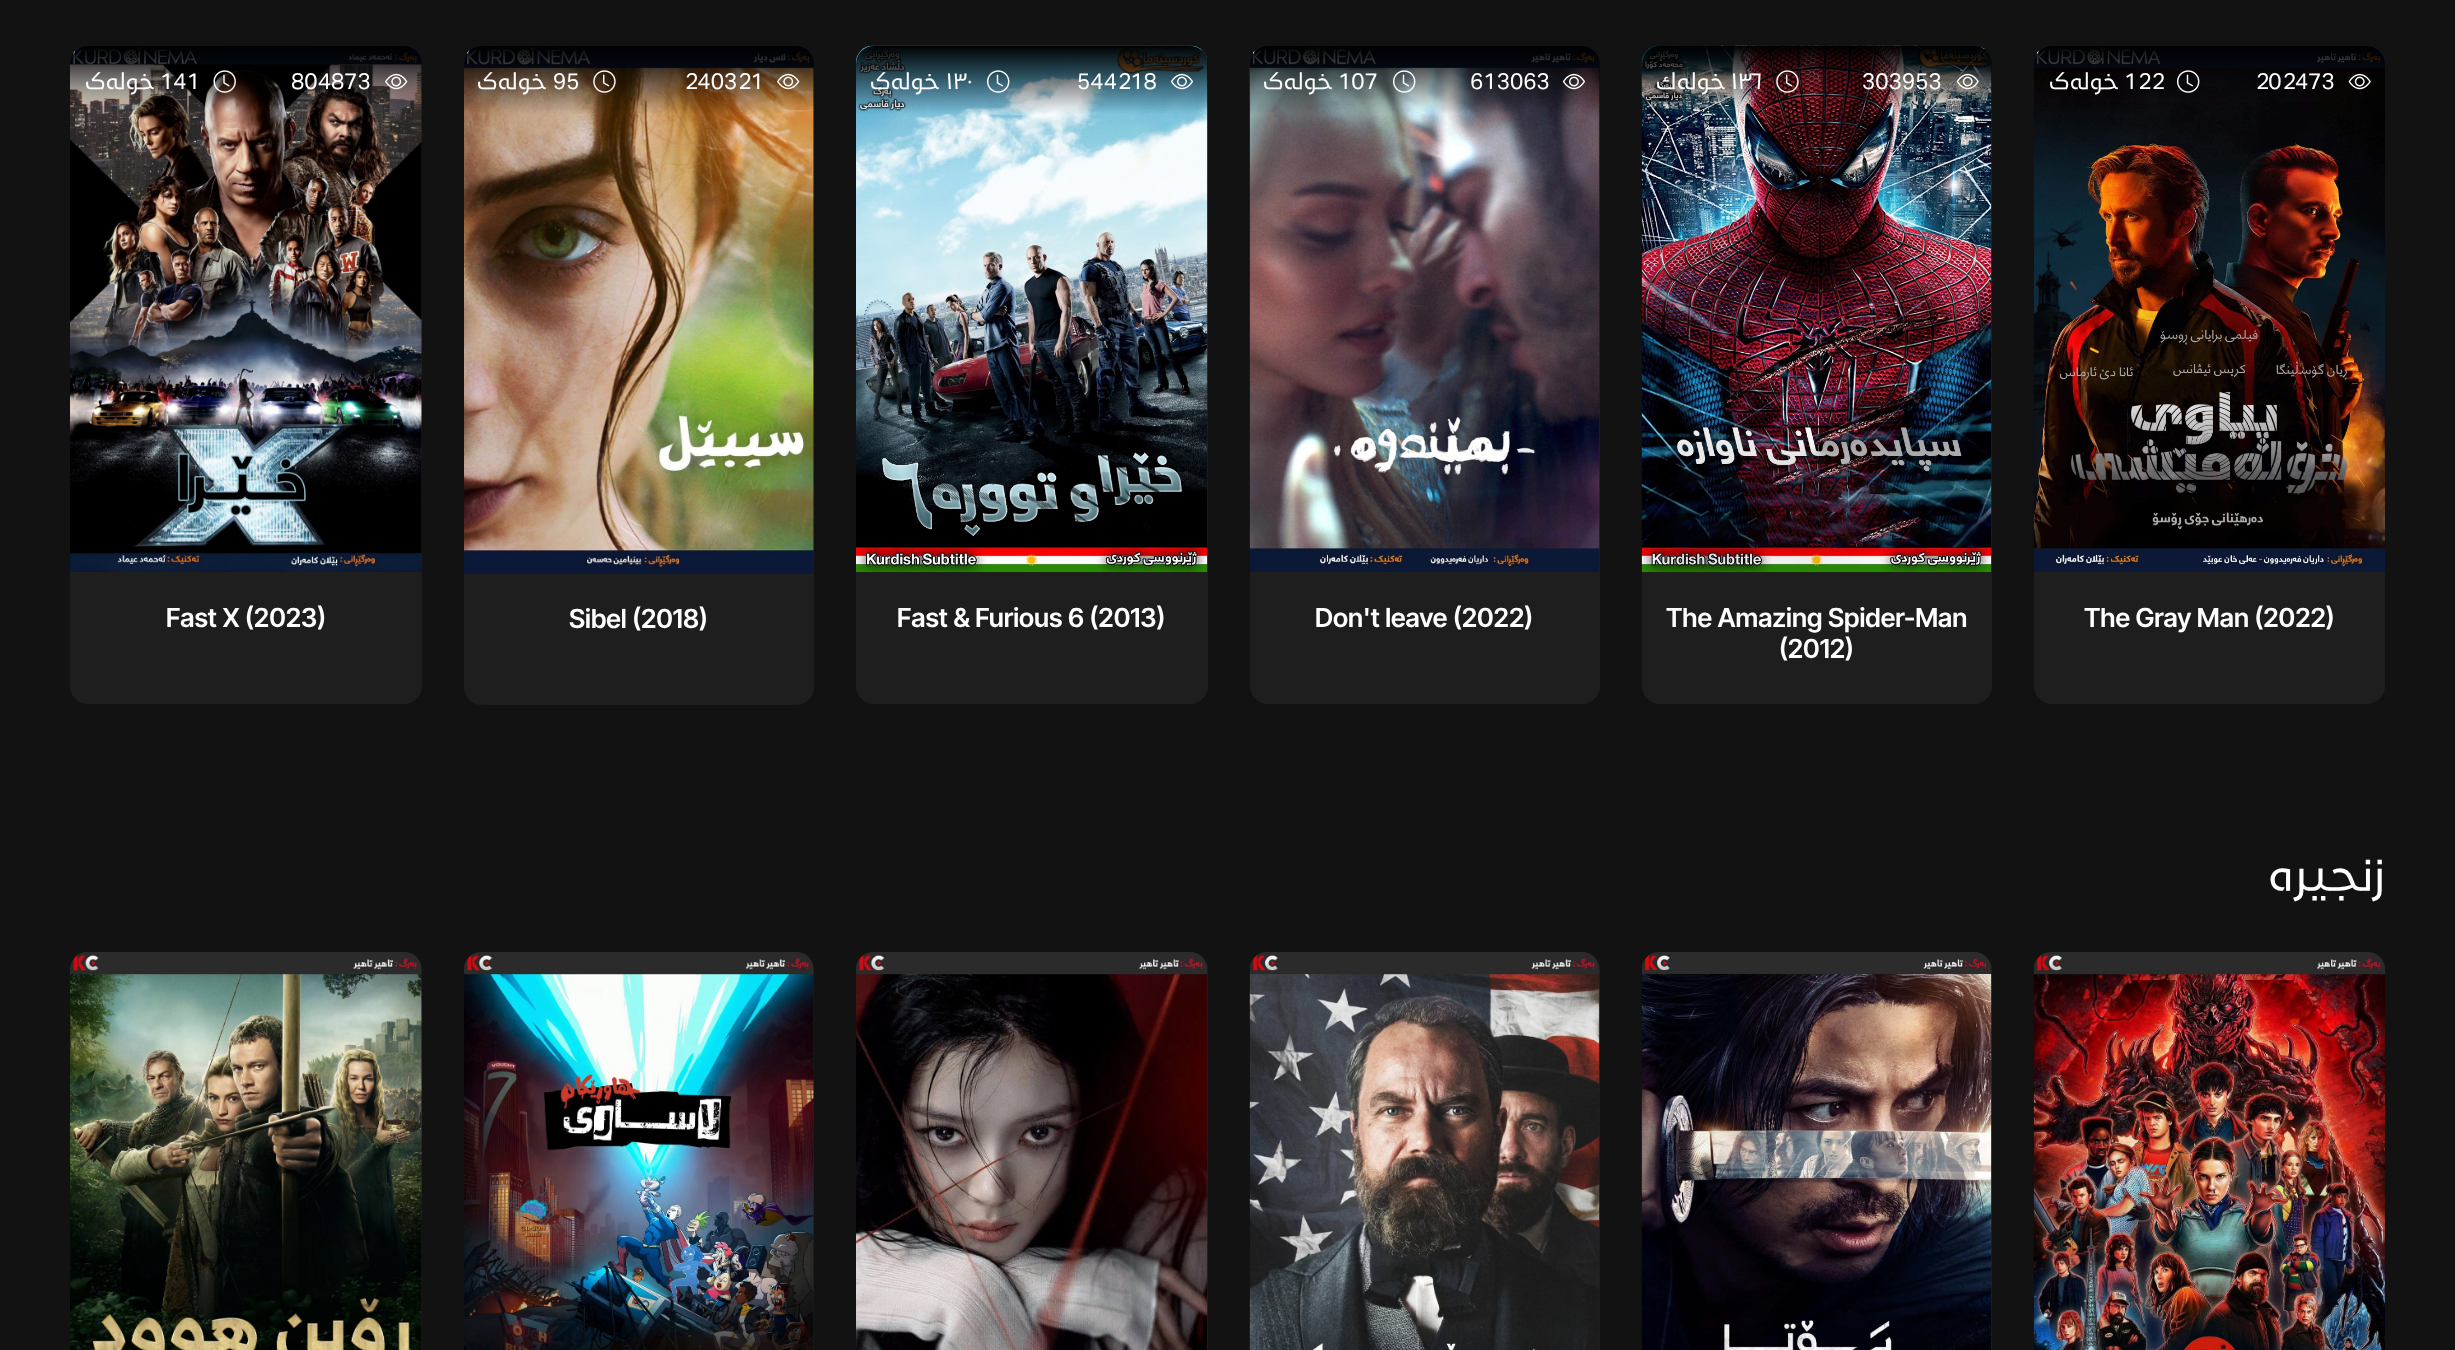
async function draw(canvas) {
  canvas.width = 2455;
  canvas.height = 1350;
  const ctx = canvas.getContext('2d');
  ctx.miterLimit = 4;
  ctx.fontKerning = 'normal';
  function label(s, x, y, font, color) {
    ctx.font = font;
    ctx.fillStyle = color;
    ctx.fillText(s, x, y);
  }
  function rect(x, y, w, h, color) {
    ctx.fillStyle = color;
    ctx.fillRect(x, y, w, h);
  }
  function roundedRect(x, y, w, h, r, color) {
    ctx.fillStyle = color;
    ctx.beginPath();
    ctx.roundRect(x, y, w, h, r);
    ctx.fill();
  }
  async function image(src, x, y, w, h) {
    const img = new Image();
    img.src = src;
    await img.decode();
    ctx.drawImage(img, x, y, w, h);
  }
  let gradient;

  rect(0, 0, 2455, 1350, '#121212');
  roundedRect(70, 46, 352, 658, 18, '#1e1e1e');
  await image('assets/img1.png', 70, 45, 352, 527);
  gradient = ctx.createLinearGradient(246, 45, 246, 114);
  gradient.addColorStop(0, '#000');
  gradient.addColorStop(1, '#00000000');
  ctx.fillStyle = gradient;
  ctx.beginPath();
  ctx.roundRect(70, 46, 352, 68, [18, 18, 0, 0]);
  ctx.fill();
  ctx.direction = 'rtl';
  label('خولەک', 155, 89, '22.5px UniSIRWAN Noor', '#fff');
  ctx.direction = 'ltr';
  label('141', 160, 89, '22.5px UniSIRWAN Noor', '#fff');
  await image('assets/img2.png', 213, 70, 23, 23);
  label('804873', 291, 89, '22.5px UniSIRWAN Noor', '#fff');
  await image('assets/img3.png', 385, 73, 23, 17);
  label('Fast X (2023)', 166, 627, '600 26.25px Inter Tight', '#fff');
  roundedRect(464, 46, 350, 659, 18, '#1e1e1e');
  await image('assets/img4.png', 464, 45, 350, 529);
  gradient = ctx.createLinearGradient(639, 45, 639, 114);
  gradient.addColorStop(0, '#000');
  gradient.addColorStop(1, '#00000000');
  ctx.fillStyle = gradient;
  ctx.beginPath();
  ctx.roundRect(464, 46, 350, 68, [18, 18, 0, 0]);
  ctx.fill();
  ctx.direction = 'rtl';
  label('خولەک', 547, 89, '22.5px UniSIRWAN Noor', '#fff');
  ctx.direction = 'ltr';
  label('95', 553, 89, '22.5px UniSIRWAN Noor', '#fff');
  await image('assets/img5.png', 593, 70, 23, 23);
  label('240321', 684, 89, '22.5px UniSIRWAN Noor', '#fff');
  await image('assets/img6.png', 777, 73, 23, 17);
  label('Sibel (2018)', 569, 628, '600 26.25px Inter Tight', '#fff');
  roundedRect(856, 46, 352, 658, 18, '#1e1e1e');
  await image('assets/img7.png', 856, 45, 352, 528);
  gradient = ctx.createLinearGradient(1032, 45, 1032, 114);
  gradient.addColorStop(0, '#000');
  gradient.addColorStop(1, '#00000000');
  ctx.fillStyle = gradient;
  ctx.beginPath();
  ctx.roundRect(856, 46, 352, 68, [18, 18, 0, 0]);
  ctx.fill();
  ctx.direction = 'rtl';
  label('خولەک', 940, 89, '22.5px UniSIRWAN Noor', '#fff');
  ctx.direction = 'ltr';
  label('١٣٠', 946, 89, '22.5px UniSIRWAN Noor', '#fff');
  await image('assets/img8.png', 987, 70, 23, 23);
  label('544218', 1077, 89, '22.5px UniSIRWAN Noor', '#fff');
  await image('assets/img9.png', 1170, 73, 24, 17);
  label('Fast & Furious 6 (2013)', 897, 627, '600 26.25px Inter Tight', '#fff');
  roundedRect(1250, 46, 350, 658, 18, '#1e1e1e');
  await image('assets/img10.png', 1249, 45, 351, 527);
  gradient = ctx.createLinearGradient(1425, 45, 1425, 114);
  gradient.addColorStop(0, '#000');
  gradient.addColorStop(1, '#00000000');
  ctx.fillStyle = gradient;
  ctx.beginPath();
  ctx.roundRect(1250, 46, 350, 68, [18, 18, 0, 0]);
  ctx.fill();
  ctx.direction = 'rtl';
  label('خولەک', 1333, 89, '22.5px UniSIRWAN Noor', '#fff');
  ctx.direction = 'ltr';
  label('107', 1338, 89, '22.5px UniSIRWAN Noor', '#fff');
  await image('assets/img11.png', 1393, 70, 23, 23);
  label('613063', 1470, 89, '22.5px UniSIRWAN Noor', '#fff');
  await image('assets/img12.png', 1562, 73, 24, 17);
  label('Don\'t leave (2022)', 1315, 627, '600 26.25px Inter Tight', '#fff');
  roundedRect(1642, 46, 350, 658, 18, '#1e1e1e');
  await image('assets/img13.png', 1641, 45, 351, 528);
  gradient = ctx.createLinearGradient(1817, 45, 1817, 114);
  gradient.addColorStop(0, '#000');
  gradient.addColorStop(1, '#00000000');
  ctx.fillStyle = gradient;
  ctx.beginPath();
  ctx.roundRect(1642, 46, 350, 68, [18, 18, 0, 0]);
  ctx.fill();
  ctx.direction = 'rtl';
  label('خوله‌ك', 1726, 89, '22.5px UniSIRWAN Noor', '#fff');
  ctx.direction = 'ltr';
  label('١٣٦', 1731, 89, '22.5px UniSIRWAN Noor', '#fff');
  await image('assets/img14.png', 1776, 70, 23, 23);
  label('303953', 1862, 89, '22.5px UniSIRWAN Noor', '#fff');
  await image('assets/img15.png', 1956, 73, 23, 17);
  label('The Amazing Spider-Man', 1666, 627, '600 26.25px Inter Tight', '#fff');
  label('(2012)', 1779, 658, '600 26.25px Inter Tight', '#fff');
  roundedRect(2034, 46, 351, 658, 18, '#1e1e1e');
  await image('assets/img16.png', 2033, 45, 352, 527);
  gradient = ctx.createLinearGradient(2209, 45, 2209, 114);
  gradient.addColorStop(0, '#000');
  gradient.addColorStop(1, '#00000000');
  ctx.fillStyle = gradient;
  ctx.beginPath();
  ctx.roundRect(2034, 46, 351, 68, [18, 18, 0, 0]);
  ctx.fill();
  ctx.direction = 'rtl';
  label('خولەک', 2119, 89, '22.5px UniSIRWAN Noor', '#fff');
  ctx.direction = 'ltr';
  label('122', 2124, 89, '22.5px UniSIRWAN Noor', '#fff');
  await image('assets/img17.png', 2177, 70, 23, 23);
  label('202473', 2255, 89, '22.5px UniSIRWAN Noor', '#fff');
  await image('assets/img18.png', 2348, 73, 23, 17);
  label('The Gray Man (2022)', 2084, 627, '600 26.25px Inter Tight', '#fff');
  ctx.direction = 'rtl';
  label('زنجیرە', 2385, 890, '45.5px UniSIRWAN Noor', '#fff');
  roundedRect(70, 952, 352, 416, 18, '#1e1e1e');
  await image('assets/img19.png', 70, 952, 352, 398);
  roundedRect(464, 952, 350, 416, 18, '#1e1e1e');
  await image('assets/img20.png', 464, 952, 350, 398);
  roundedRect(856, 952, 352, 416, 18, '#1e1e1e');
  await image('assets/img21.png', 856, 952, 352, 398);
  roundedRect(1250, 952, 350, 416, 18, '#1e1e1e');
  await image('assets/img22.png', 1249, 952, 351, 398);
  roundedRect(1642, 952, 350, 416, 18, '#1e1e1e');
  await image('assets/img23.png', 1641, 952, 351, 398);
  await image('assets/img24.png', 2033, 952, 352, 398);
}

draw(document.querySelector('canvas'));
